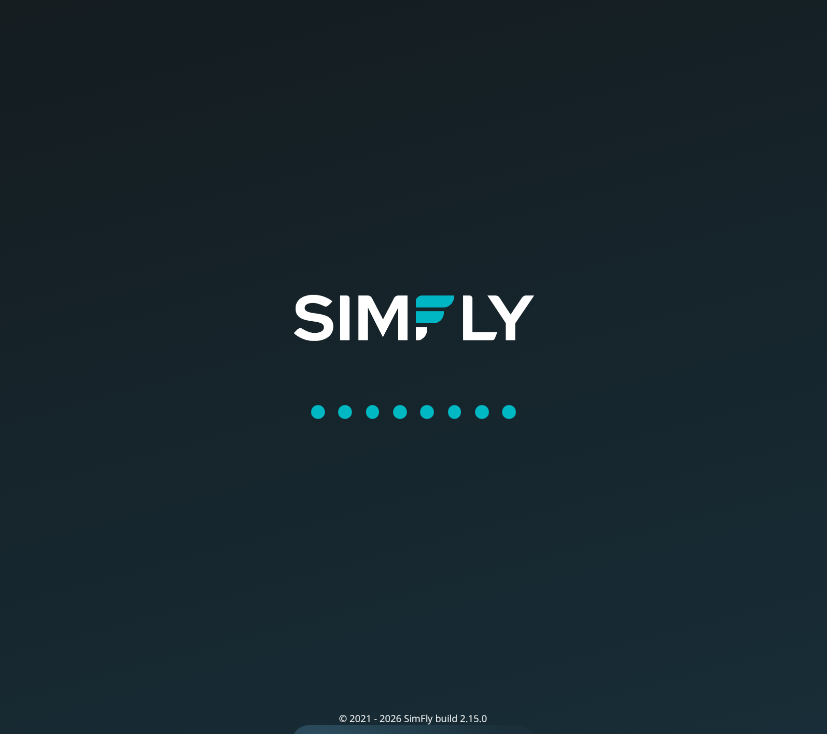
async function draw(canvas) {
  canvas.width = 827;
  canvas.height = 734;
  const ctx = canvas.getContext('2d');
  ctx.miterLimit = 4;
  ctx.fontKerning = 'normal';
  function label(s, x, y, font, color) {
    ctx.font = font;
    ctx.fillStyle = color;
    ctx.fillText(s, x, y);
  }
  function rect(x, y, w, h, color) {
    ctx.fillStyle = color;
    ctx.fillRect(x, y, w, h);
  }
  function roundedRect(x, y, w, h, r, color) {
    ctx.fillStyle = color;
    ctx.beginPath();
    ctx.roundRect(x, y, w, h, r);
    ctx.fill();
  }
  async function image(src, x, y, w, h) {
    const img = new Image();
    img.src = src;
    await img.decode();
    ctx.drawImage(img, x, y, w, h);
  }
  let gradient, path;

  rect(0, 0, 827, 734, '#fff');
  gradient = ctx.createLinearGradient(294, -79, 533, 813);
  gradient.addColorStop(0, '#141c20');
  gradient.addColorStop(1, '#182d37');
  ctx.fillStyle = gradient;
  ctx.fillRect(0, 0, 827, 734);
  await image('assets/img1.png', 294, 294, 240, 47);
  ctx.fillStyle = '#00b7c4';
  ctx.beginPath();
  ctx.arc(318, 412, 7, 0, 2 * Math.PI);
  ctx.fill();
  ctx.beginPath();
  ctx.arc(345, 412, 7, 0, 2 * Math.PI);
  ctx.fill();
  roundedRect(366, 405, 13, 14, 6.5, '#00b7c4');
  ctx.beginPath();
  ctx.arc(400, 412, 7, 0, 2 * Math.PI);
  ctx.fill();
  ctx.beginPath();
  ctx.arc(427, 412, 7, 0, 2 * Math.PI);
  ctx.fill();
  roundedRect(448, 405, 13, 14, 6.5, '#00b7c4');
  ctx.beginPath();
  ctx.arc(482, 412, 7, 0, 2 * Math.PI);
  ctx.fill();
  ctx.beginPath();
  ctx.arc(509, 412, 7, 0, 2 * Math.PI);
  ctx.fill();
  label('© 2021 - 2026 SimFly build 2.15.0', 339, 722, '9.6px Open Sans', '#fff');
  gradient = ctx.createRadialGradient(317, 2159.06, 0, 317, 2159.06, 188);
  gradient.addColorStop(0, '#2c4d5f');
  gradient.addColorStop(1, '#1a2f39');
  ctx.fillStyle = gradient;
  path = new Path2D('M309 725H518C527.5 725 535 732.5 535 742V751H292V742C292 732.5 299.5 725 309 725Z');
  ctx.save();
  ctx.clip(path);
  ctx.scale(1, 64 / 188);
  ctx.fillRect(0, 0, 827, 2157);
  ctx.restore();
}

draw(document.querySelector('canvas'));
